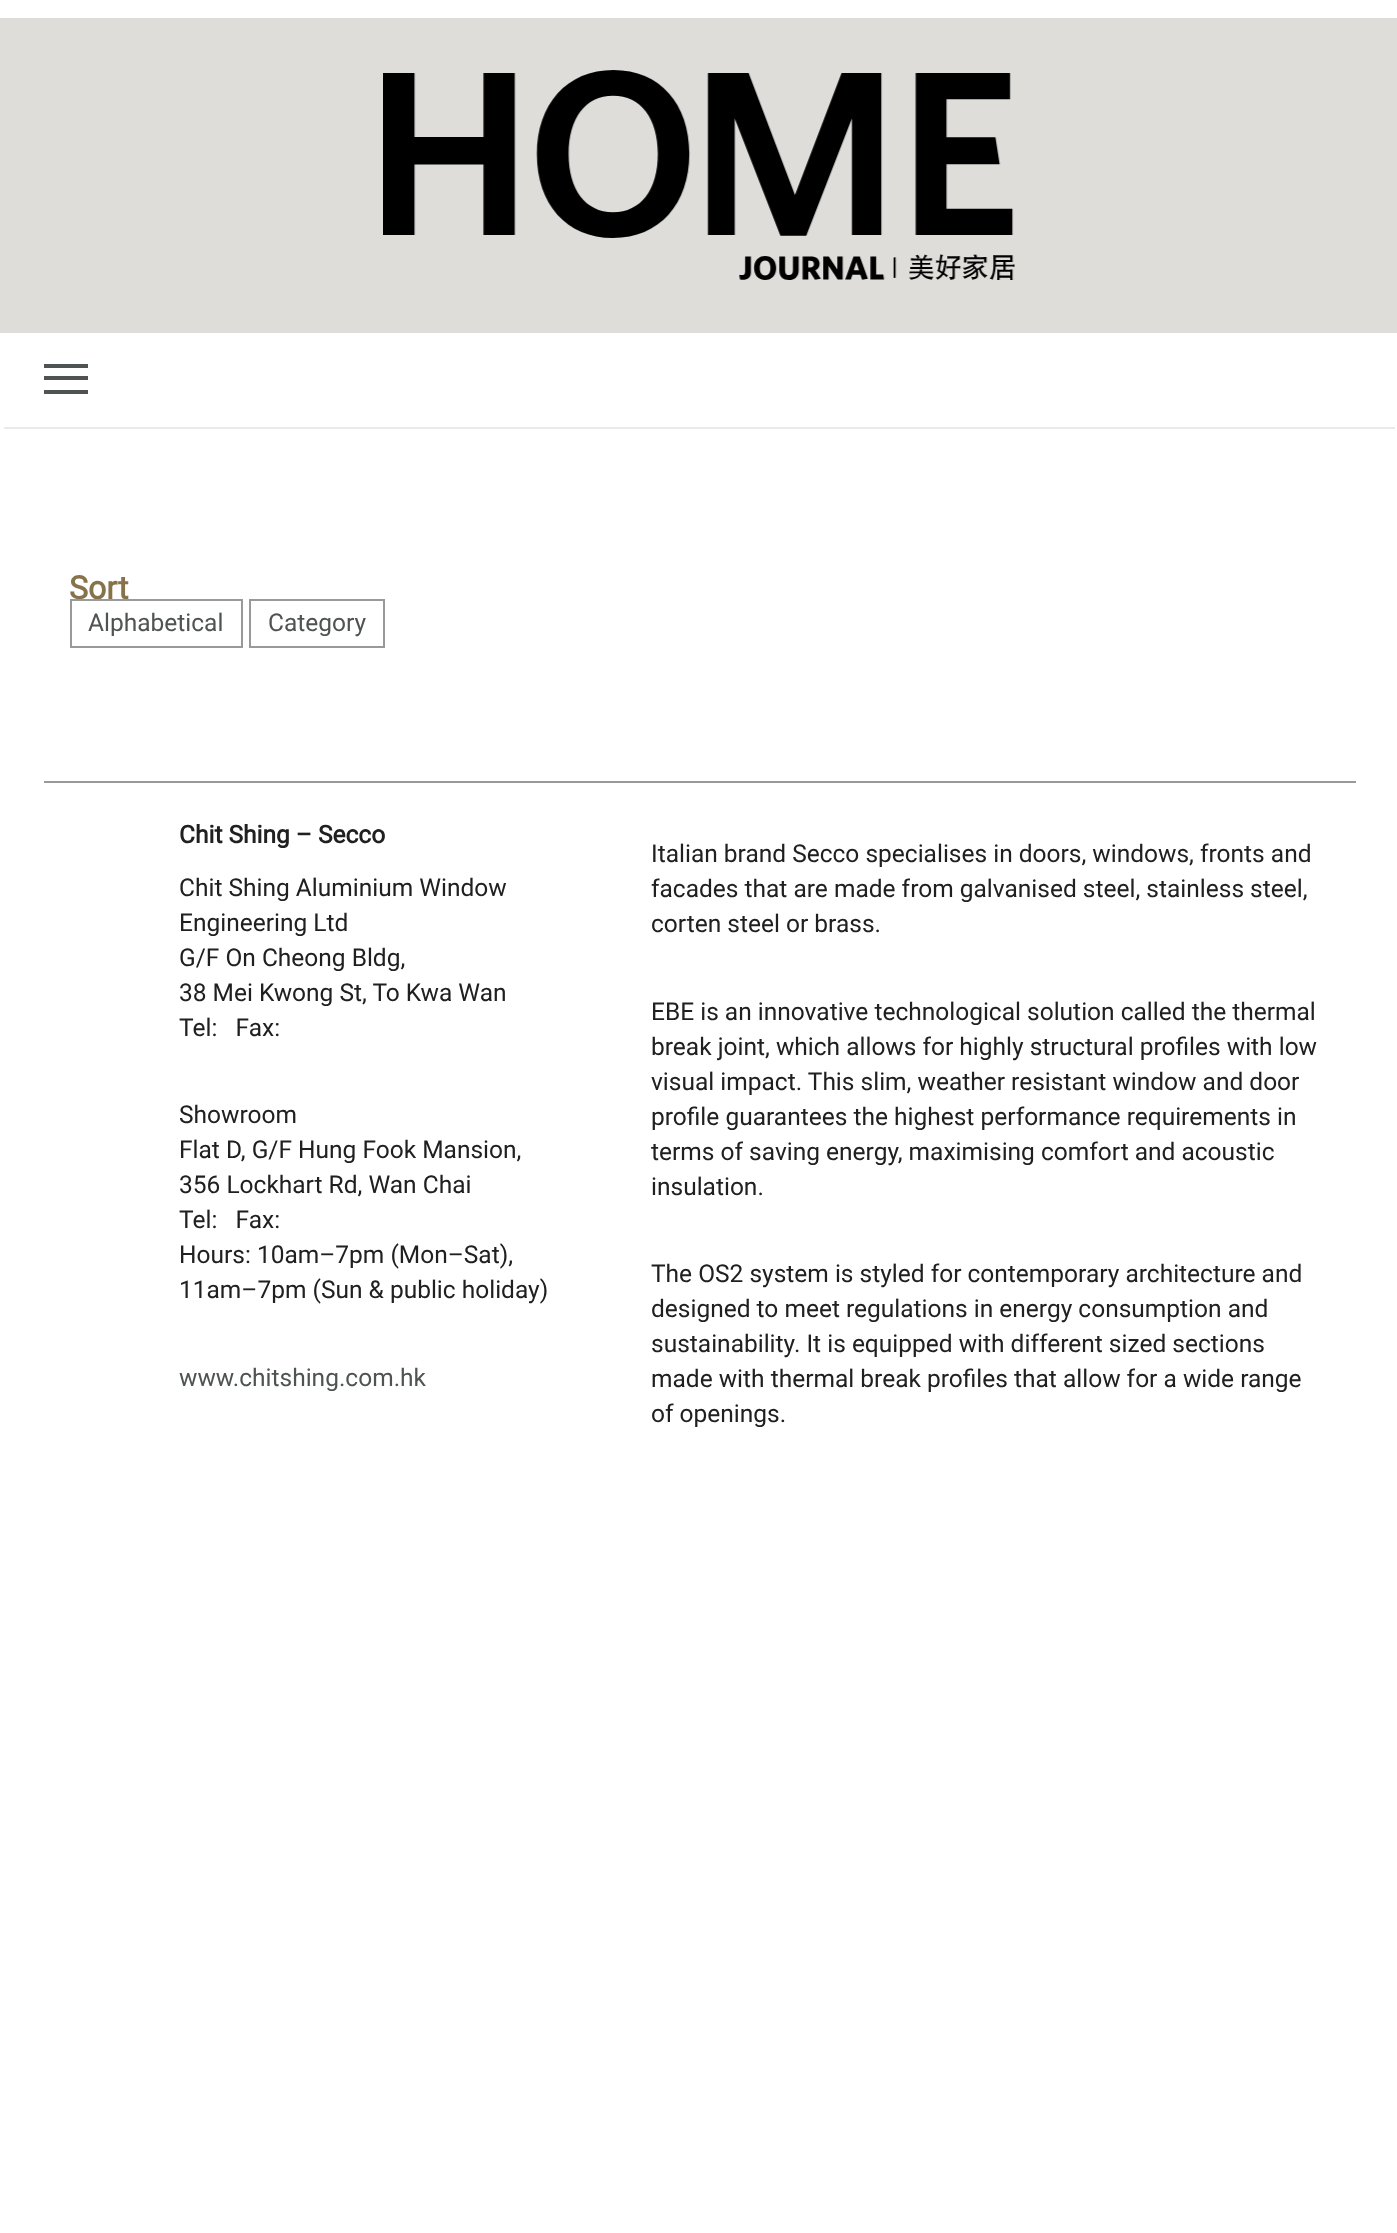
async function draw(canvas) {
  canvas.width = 1397;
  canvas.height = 2233;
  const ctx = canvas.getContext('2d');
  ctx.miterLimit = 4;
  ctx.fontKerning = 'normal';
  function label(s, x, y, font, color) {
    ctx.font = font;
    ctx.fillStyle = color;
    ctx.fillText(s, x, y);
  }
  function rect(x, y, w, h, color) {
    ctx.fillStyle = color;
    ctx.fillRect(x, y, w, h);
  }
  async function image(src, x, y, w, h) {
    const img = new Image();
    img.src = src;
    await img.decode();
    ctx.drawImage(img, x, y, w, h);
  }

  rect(0, 0, 1397, 2233, '#fff');
  rect(0, 18, 1397, 315, '#deddd9');
  await image('assets/img1.png', 383, 70, 632, 210);
  rect(4, 427, 1391, 2, '#eaeaea');
  rect(44, 364, 44, 4, '#505353');
  rect(44, 376, 44, 4, '#505353');
  rect(44, 390, 44, 4, '#505353');
  label('Sort', 69, 599, 'bold 32px Roboto', '#86734a');
  ctx.strokeStyle = '#999';
  ctx.lineWidth = 2;
  ctx.strokeRect(71, 600, 171, 47);
  label('Alphabetical', 88, 631, '24.5px Roboto', '#505353');
  ctx.strokeRect(250, 600, 134, 47);
  label('Category', 268, 631, '24.5px Roboto', '#505353');
  rect(44, 781, 1312, 2, '#999');
  label('Chit Shing – Secco', 179, 843, 'bold 24.5px Roboto', '#202020');
  label('Chit Shing Aluminium Window', 179, 896, '24.5px Roboto', '#202020');
  label('Engineering Ltd', 179, 931, '24.5px Roboto', '#202020');
  label('G/F On Cheong Bldg,', 179, 966, '24.5px Roboto', '#202020');
  label('38 Mei Kwong St, To Kwa Wan', 179, 1001, '24.5px Roboto', '#202020');
  label('Tel:   Fax:', 179, 1036, '24.5px Roboto', '#202020');
  label('Showroom', 179, 1123, '24.5px Roboto', '#202020');
  label('Flat D, G/F Hung Fook Mansion,', 179, 1158, '24.5px Roboto', '#202020');
  label('356 Lockhart Rd, Wan Chai', 179, 1193, '24.5px Roboto', '#202020');
  label('Tel:   Fax:', 179, 1228, '24.5px Roboto', '#202020');
  label('Hours: 10am–7pm (Mon–Sat),', 179, 1263, '24.5px Roboto', '#202020');
  label('11am–7pm (Sun & public holiday)', 179, 1298, '24.5px Roboto', '#202020');
  label('www.chitshing.com.hk', 179, 1386, '24.5px Roboto', '#505353');
  label('Italian brand Secco specialises in doors, windows, fronts and', 651, 862, '24.5px Roboto', '#202020');
  label('facades that are made from galvanised steel, stainless steel,', 651, 897, '24.5px Roboto', '#202020');
  label('corten steel or brass.', 651, 932, '24.5px Roboto', '#202020');
  label('EBE is an innovative technological solution called the thermal', 651, 1020, '24.5px Roboto', '#202020');
  label('break joint, which allows for highly structural profiles with low', 651, 1055, '24.5px Roboto', '#202020');
  label('visual impact. This slim, weather resistant window and door', 651, 1090, '24.5px Roboto', '#202020');
  label('profile guarantees the highest performance requirements in', 651, 1125, '24.5px Roboto', '#202020');
  label('terms of saving energy, maximising comfort and acoustic', 651, 1160, '24.5px Roboto', '#202020');
  label('insulation.', 651, 1195, '24.5px Roboto', '#202020');
  label('The OS2 system is styled for contemporary architecture and', 651, 1282, '24.5px Roboto', '#202020');
  label('designed to meet regulations in energy consumption and', 651, 1317, '24.5px Roboto', '#202020');
  label('sustainability. It is equipped with different sized sections', 651, 1352, '24.5px Roboto', '#202020');
  label('made with thermal break profiles that allow for a wide range', 651, 1387, '24.5px Roboto', '#202020');
  label('of openings.', 651, 1422, '24.5px Roboto', '#202020');
}

draw(document.querySelector('canvas'));
